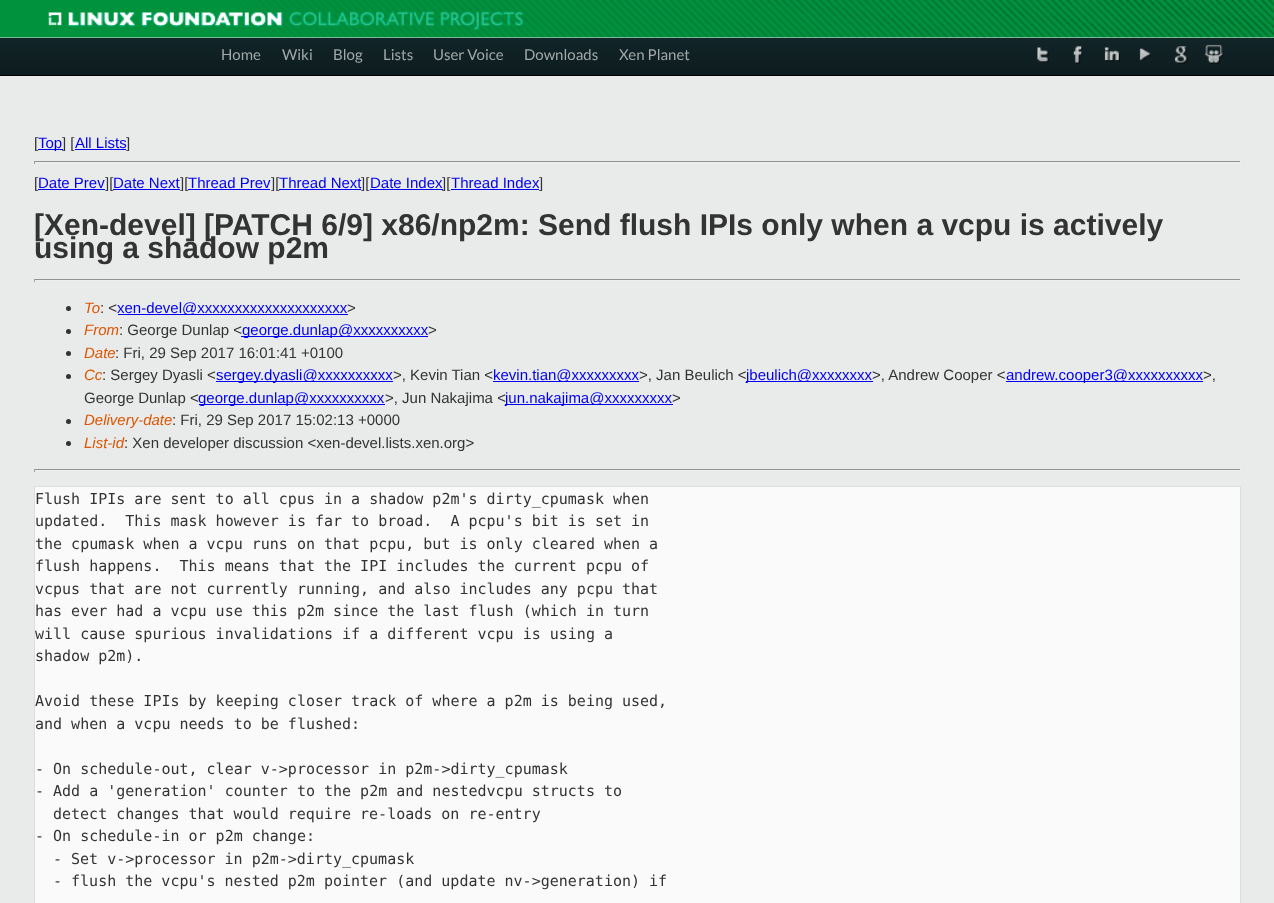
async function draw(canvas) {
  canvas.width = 1274;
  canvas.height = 903;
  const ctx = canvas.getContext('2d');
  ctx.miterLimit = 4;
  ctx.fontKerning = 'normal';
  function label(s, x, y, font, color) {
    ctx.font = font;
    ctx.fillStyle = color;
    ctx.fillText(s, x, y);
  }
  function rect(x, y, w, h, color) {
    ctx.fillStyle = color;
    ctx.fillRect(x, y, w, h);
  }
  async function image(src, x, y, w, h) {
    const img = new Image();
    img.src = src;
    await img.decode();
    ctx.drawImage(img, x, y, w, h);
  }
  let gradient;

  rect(0, 0, 1274, 903, '#e9eaea');
  await image('assets/img1.png', 0, 0, 1274, 38);
  await image('assets/img2.png', 48, 11, 475, 19);
  gradient = ctx.createLinearGradient(638, 37, 638, 75);
  gradient.addColorStop(0, '#122529');
  gradient.addColorStop(1, '#0d1b1e');
  ctx.fillStyle = gradient;
  ctx.fillRect(0, 38, 1274, 37);
  rect(0, 75, 1274, 1, '#000');
  label('Home', 221, 60, '15px Lato', '#a1a9ab');
  label('Wiki', 282, 60, '15px Lato', '#a1a9ab');
  label('Blog', 333, 60, '15px Lato', '#a1a9ab');
  label('Lists', 383, 60, '15px Lato', '#a1a9ab');
  label('User Voice', 433, 60, '15px Lato', '#a1a9ab');
  label('Downloads', 524, 60, '15px Lato', '#a1a9ab');
  label('Xen Planet', 619, 60, '15px Lato', '#a1a9ab');
  await image('assets/img3.png', 1037, 47, 12, 16);
  await image('assets/img4.png', 1073, 46, 10, 18);
  await image('assets/img5.png', 1104, 47, 16, 15);
  await image('assets/img6.png', 1139, 48, 12, 13);
  await image('assets/img7.png', 1174, 46, 14, 18);
  await image('assets/img8.png', 1204, 44, 20, 20);
  label('[', 34, 148, '15px Liberation Sans', '#333');
  rect(38, 149, 25, 1, '#00e');
  label('Top', 38, 148, '15px Liberation Sans', '#00e');
  label('] [', 62, 148, '15px Liberation Sans', '#333');
  label('All Lists', 75, 148, '15px Liberation Sans', '#00e');
  label(']', 126, 148, '15px Liberation Sans', '#333');
  rect(75, 149, 51, 1, '#00e');
  rect(34, 161, 1207, 1, '#939393');
  rect(1240, 161, 1, 3, '#eee');
  rect(34, 163, 1207, 1, '#eee');
  rect(34, 161, 1, 3, '#9f9f9f');
  label('[', 34, 188, '15px Liberation Sans', '#333');
  label('Date Prev', 38, 188, '15px Liberation Sans', '#00e');
  rect(38, 189, 67, 1, '#00e');
  label('][', 105, 188, '15px Liberation Sans', '#333');
  label('Date Next', 113, 188, '15px Liberation Sans', '#00e');
  rect(113, 189, 67, 1, '#00e');
  label('][', 180, 188, '15px Liberation Sans', '#333');
  label('Thread Prev', 188, 188, '15px Liberation Sans', '#00e');
  rect(188, 189, 82, 1, '#00e');
  label('][', 271, 188, '15px Liberation Sans', '#333');
  label('Thread Next', 279, 188, '15px Liberation Sans', '#00e');
  rect(279, 189, 82, 1, '#00e');
  label('][', 361, 188, '15px Liberation Sans', '#333');
  label('Date Index', 370, 188, '15px Liberation Sans', '#00e');
  rect(370, 189, 73, 1, '#00e');
  label('][', 442, 188, '15px Liberation Sans', '#333');
  label('Thread Index', 451, 188, '15px Liberation Sans', '#00e');
  rect(451, 189, 88, 1, '#00e');
  label(']', 539, 188, '15px Liberation Sans', '#333');
  label('[Xen-devel] [PATCH 6/9] x86/np2m: Send flush IPIs only when a vcpu is actively', 34, 235, 'bold 30px Liberation Sans', '#333');
  label('using a shadow p2m', 34, 258, 'bold 30px Liberation Sans', '#333');
  rect(34, 279, 1207, 1, '#939393');
  rect(1240, 279, 1, 3, '#eee');
  rect(34, 280, 1207, 1, '#eee');
  rect(34, 279, 1, 3, '#9f9f9f');
  ctx.fillStyle = '#333';
  ctx.beginPath();
  ctx.arc(68.5, 308.5, 2.5, 0, 2 * Math.PI);
  ctx.fill();
  label('To', 84, 313, 'italic 15px Liberation Sans', '#d50');
  label(': <', 100, 313, '15px Liberation Sans', '#333');
  rect(118, 314, 230, 1, '#00e');
  label('xen-devel@xxxxxxxxxxxxxxxxxxxx', 117, 313, '15px Liberation Sans', '#00e');
  label('>', 347, 313, '15px Liberation Sans', '#333');
  ctx.beginPath();
  ctx.arc(68.5, 331.5, 2.5, 0, 2 * Math.PI);
  ctx.fill();
  label('From', 84, 335, 'italic 15px Liberation Sans', '#d50');
  label(': George Dunlap <', 119, 335, '15px Liberation Sans', '#333');
  rect(241, 336, 187, 1, '#00e');
  label('george.dunlap@xxxxxxxxxx', 242, 335, '15px Liberation Sans', '#00e');
  label('>', 428, 335, '15px Liberation Sans', '#333');
  ctx.beginPath();
  ctx.arc(68.5, 353.5, 2.5, 0, 2 * Math.PI);
  ctx.fill();
  label('Date', 84, 358, 'italic 15px Liberation Sans', '#d50');
  label(': Fri, 29 Sep 2017 16:01:41 +0100', 115, 358, '15px Liberation Sans', '#333');
  ctx.beginPath();
  ctx.arc(68.5, 376.5, 2.5, 0, 2 * Math.PI);
  ctx.fill();
  label('Cc', 84, 380, 'italic 15px Liberation Sans', '#d50');
  label(': Sergey Dyasli <', 102, 380, '15px Liberation Sans', '#333');
  rect(216, 381, 177, 1, '#00e');
  label('sergey.dyasli@xxxxxxxxxx', 216, 380, '15px Liberation Sans', '#00e');
  label('>, Kevin Tian <', 393, 380, '15px Liberation Sans', '#333');
  rect(493, 381, 146, 1, '#00e');
  label('kevin.tian@xxxxxxxxx', 493, 380, '15px Liberation Sans', '#00e');
  label('>, Jan Beulich <', 639, 380, '15px Liberation Sans', '#333');
  rect(746, 381, 127, 1, '#00e');
  label('jbeulich@xxxxxxxx', 746, 380, '15px Liberation Sans', '#00e');
  label('>, Andrew Cooper <', 872, 380, '15px Liberation Sans', '#333');
  rect(1006, 381, 197, 1, '#00e');
  label('andrew.cooper3@xxxxxxxxxx', 1006, 380, '15px Liberation Sans', '#00e');
  label('>,', 1203, 380, '15px Liberation Sans', '#333');
  label('George Dunlap <', 84, 403, '15px Liberation Sans', '#333');
  rect(199, 404, 186, 1, '#00e');
  label('george.dunlap@xxxxxxxxxx', 198, 403, '15px Liberation Sans', '#00e');
  label('>, Jun Nakajima <', 385, 403, '15px Liberation Sans', '#333');
  rect(505, 404, 168, 1, '#00e');
  label('jun.nakajima@xxxxxxxxx', 505, 403, '15px Liberation Sans', '#00e');
  label('>', 672, 403, '15px Liberation Sans', '#333');
  ctx.beginPath();
  ctx.arc(68.5, 421.5, 2.5, 0, 2 * Math.PI);
  ctx.fill();
  label('Delivery-date', 84, 425, 'italic 15px Liberation Sans', '#d50');
  label(': Fri, 29 Sep 2017 15:02:13 +0000', 172, 425, '15px Liberation Sans', '#333');
  ctx.beginPath();
  ctx.arc(68.5, 443.5, 2.5, 0, 2 * Math.PI);
  ctx.fill();
  label('List-id', 84, 448, 'italic 15px Liberation Sans', '#d50');
  label(': Xen developer discussion <xen-devel.lists.xen.org>', 124, 448, '15px Liberation Sans', '#333');
  rect(34, 469, 1207, 1, '#939393');
  rect(1240, 469, 1, 3, '#eee');
  rect(34, 470, 1207, 1, '#eee');
  rect(34, 469, 1, 3, '#9f9f9f');
  ctx.fillStyle = '#fafafa';
  ctx.beginPath();
  ctx.rect(34.5, 486.5, 1206, 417);
  ctx.fill();
  ctx.strokeStyle = '#ddd';
  ctx.stroke();
  label('Flush IPIs are sent to all cpus in a shadow p2m\'s dirty_cpumask when', 35, 504, '15px DejaVu Sans Mono', '#333');
  label('updated.  This mask however is far to broad.  A pcpu\'s bit is set in', 35, 526, '15px DejaVu Sans Mono', '#333');
  label('the cpumask when a vcpu runs on that pcpu, but is only cleared when a', 35, 549, '15px DejaVu Sans Mono', '#333');
  label('flush happens.  This means that the IPI includes the current pcpu of', 35, 571, '15px DejaVu Sans Mono', '#333');
  label('vcpus that are not currently running, and also includes any pcpu that', 35, 594, '15px DejaVu Sans Mono', '#333');
  label('has ever had a vcpu use this p2m since the last flush (which in turn', 35, 616, '15px DejaVu Sans Mono', '#333');
  label('will cause spurious invalidations if a different vcpu is using a', 35, 639, '15px DejaVu Sans Mono', '#333');
  label('shadow p2m).', 35, 661, '15px DejaVu Sans Mono', '#333');
  label('Avoid these IPIs by keeping closer track of where a p2m is being used,', 35, 706, '15px DejaVu Sans Mono', '#333');
  label('and when a vcpu needs to be flushed:', 35, 729, '15px DejaVu Sans Mono', '#333');
  label('- On schedule-out, clear v->processor in p2m->dirty_cpumask', 35, 774, '15px DejaVu Sans Mono', '#333');
  label('- Add a \'generation\' counter to the p2m and nestedvcpu structs to', 35, 796, '15px DejaVu Sans Mono', '#333');
  label('detect changes that would require re-loads on re-entry', 53, 819, '15px DejaVu Sans Mono', '#333');
  label('- On schedule-in or p2m change:', 35, 841, '15px DejaVu Sans Mono', '#333');
  label('- Set v->processor in p2m->dirty_cpumask', 53, 864, '15px DejaVu Sans Mono', '#333');
  label('- flush the vcpu\'s nested p2m pointer (and update nv->generation) if', 53, 886, '15px DejaVu Sans Mono', '#333');
}

draw(document.querySelector('canvas'));
